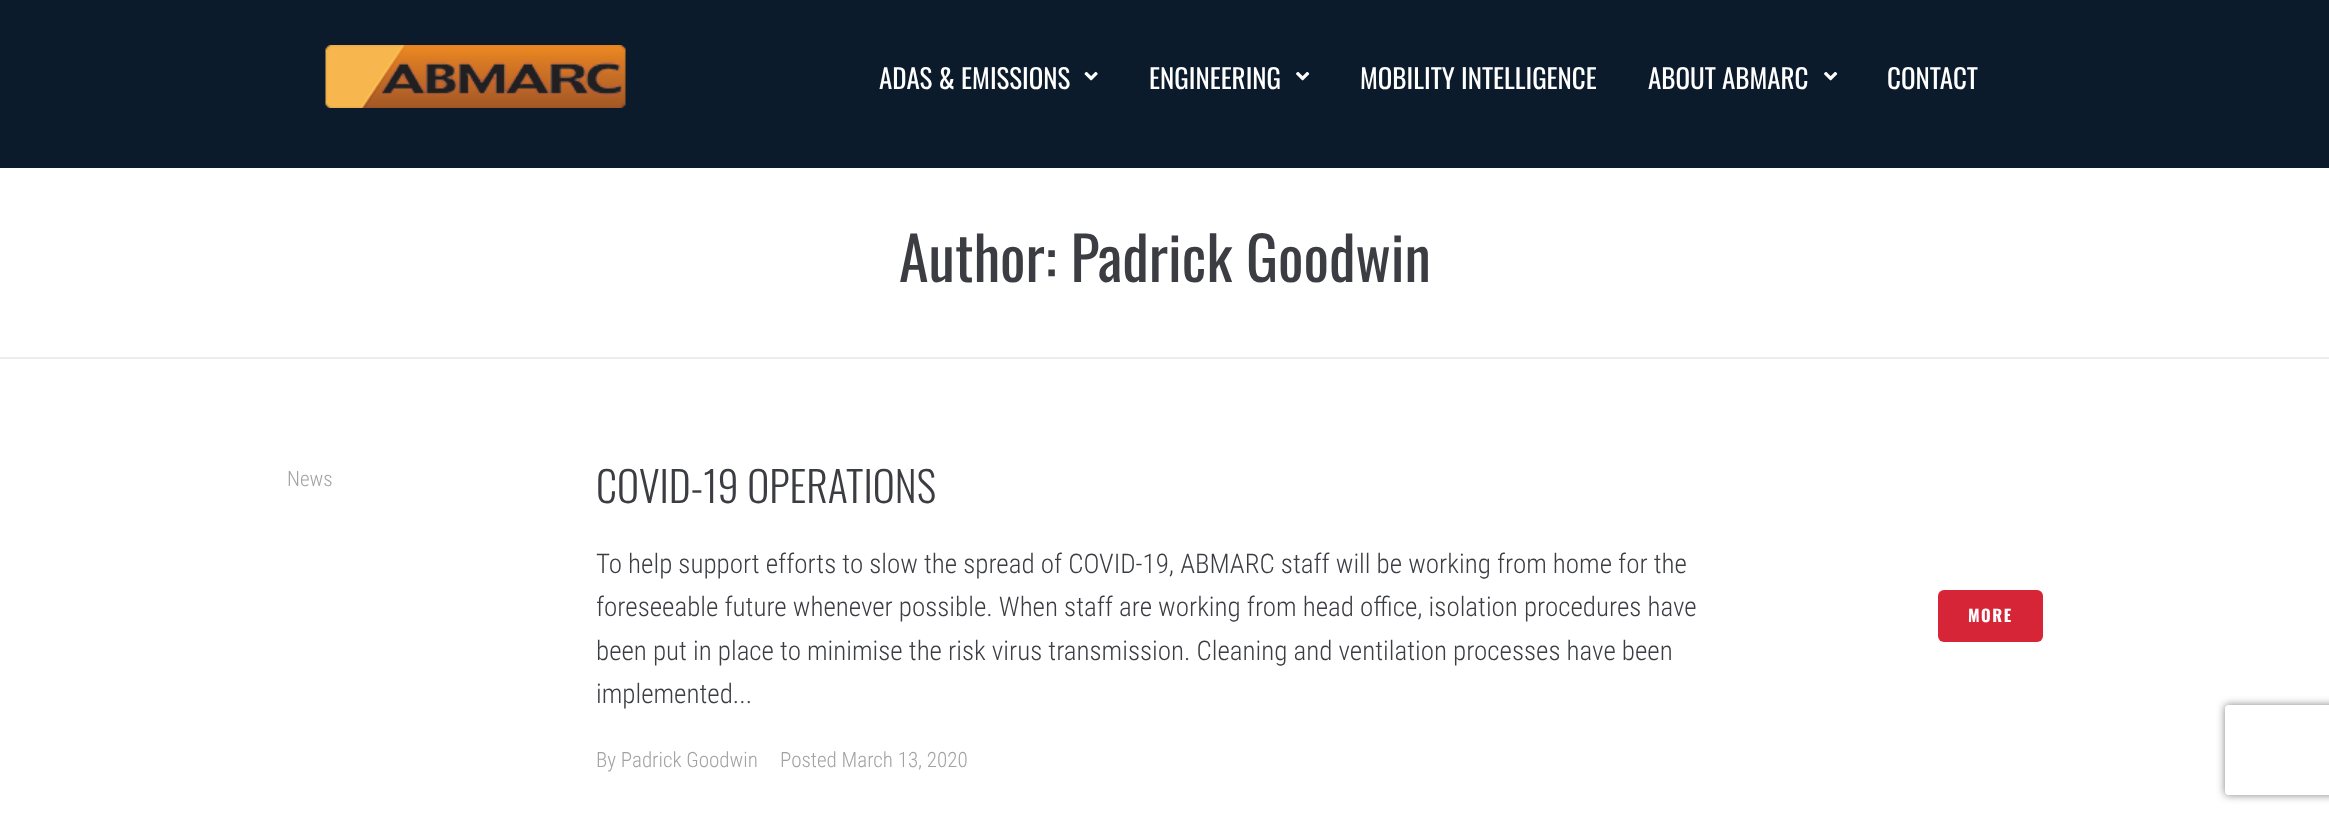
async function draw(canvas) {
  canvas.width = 2329;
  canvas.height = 815;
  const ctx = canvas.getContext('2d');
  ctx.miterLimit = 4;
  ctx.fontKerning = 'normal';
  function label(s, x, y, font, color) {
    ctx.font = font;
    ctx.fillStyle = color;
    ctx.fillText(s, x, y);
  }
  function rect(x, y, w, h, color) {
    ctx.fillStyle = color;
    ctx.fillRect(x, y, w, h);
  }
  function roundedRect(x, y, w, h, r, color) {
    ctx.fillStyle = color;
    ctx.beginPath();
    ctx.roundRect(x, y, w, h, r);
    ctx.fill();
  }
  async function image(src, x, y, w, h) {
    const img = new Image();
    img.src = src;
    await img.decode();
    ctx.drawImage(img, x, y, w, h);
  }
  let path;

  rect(0, 0, 2329, 815, '#fff');
  rect(0, 0, 2329, 168, '#0b1b2b');
  await image('assets/img1.png', 325, 45, 301, 63);
  label('ADAS & EMISSIONS', 879, 89, '27px Oswald', '#fff');
  await image('assets/img2.png', 1084, 71, 14, 10);
  label('ENGINEERING', 1149, 89, '27px Oswald', '#fff');
  await image('assets/img3.png', 1296, 71, 14, 10);
  label('MOBILITY INTELLIGENCE', 1360, 89, '27px Oswald', '#fff');
  label('ABOUT ABMARC', 1648, 89, '27px Oswald', '#fff');
  await image('assets/img3.png', 1824, 71, 14, 10);
  label('CONTACT', 1887, 89, '27px Oswald', '#fff');
  label('Author: Padrick Goodwin', 899, 282, '60px Oswald', '#3b3d42');
  rect(0, 357, 2329, 2, '#ebeced');
  label('News', 287, 486, '300 21px Roboto Condensed', '#a1a2a4');
  label('COVID-19 OPERATIONS', 596, 503, '300 42px Oswald', '#3b3d42');
  label('To help support efforts to slow the spread of COVID-19, ABMARC staff will be working from home for the', 596, 573, '300 27px Roboto Condensed', '#3b3d42');
  label('foreseeable future whenever possible. When staff are working from head office, isolation procedures have', 596, 616, '300 27px Roboto Condensed', '#3b3d42');
  label('been put in place to minimise the risk virus transmission. Cleaning and ventilation processes have been', 596, 660, '300 27px Roboto Condensed', '#3b3d42');
  label('implemented...', 596, 703, '300 27px Roboto Condensed', '#3b3d42');
  label('By Padrick Goodwin', 596, 767, '300 21px Roboto Condensed', '#a1a2a4');
  label('Posted March 13, 2020', 780, 767, '300 21px Roboto Condensed', '#a1a2a4');
  roundedRect(1938, 590, 105, 52, 6, '#d62536');
  ctx.letterSpacing = '1.5px';
  label('MORE', 1968, 622, 'bold 16.5px Oswald', '#fff');
  ctx.save();
  path = new Path2D('M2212 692H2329V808H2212ZM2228 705H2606C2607.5 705 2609 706.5 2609 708V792C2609 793.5 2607.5 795 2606 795H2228C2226.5 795 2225 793.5 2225 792V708C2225 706.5 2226.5 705 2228 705Z');
  ctx.clip(path, 'evenodd');
  ctx.fillStyle = '#808080';
  ctx.filter = 'blur(4px)';
  ctx.beginPath();
  ctx.roundRect(2225, 705, 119, 90, 3);
  ctx.fill();
  ctx.filter = 'none';
  ctx.restore();
}

draw(document.querySelector('canvas'));
